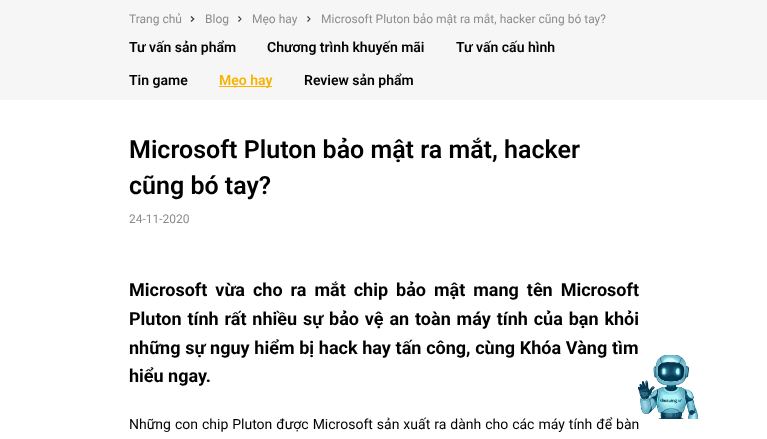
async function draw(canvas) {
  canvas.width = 767;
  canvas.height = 439;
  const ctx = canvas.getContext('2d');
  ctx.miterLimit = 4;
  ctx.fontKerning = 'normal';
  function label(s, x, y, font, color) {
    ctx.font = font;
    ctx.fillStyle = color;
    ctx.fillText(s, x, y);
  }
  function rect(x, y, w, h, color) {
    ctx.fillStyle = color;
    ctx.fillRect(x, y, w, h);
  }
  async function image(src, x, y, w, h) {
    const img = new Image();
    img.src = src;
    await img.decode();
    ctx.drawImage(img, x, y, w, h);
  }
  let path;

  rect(0, 0, 767, 439, '#f6f6f6');
  label('Trang chủ', 129, 23, '12px Roboto', '#8d8d8d');
  ctx.fillStyle = '#3a3a39';
  path = new Path2D('M191.5 16L194.5 19L193.5 19.5L190.5 17Z');
  ctx.fill(path);
  path = new Path2D('M193.5 18.5L194.5 19L191.5 22L190.5 21Z');
  ctx.fill(path);
  label('Blog', 205, 23, '12px Roboto', '#8d8d8d');
  ctx.fillStyle = '#3a3a39';
  path = new Path2D('M239 16L241.5 19L241 19.5L238 17Z');
  ctx.fill(path);
  path = new Path2D('M241 18.5L241.5 19L239 22L238 21Z');
  ctx.fill(path);
  label('Mẹo hay', 252, 23, '12px Roboto', '#8d8d8d');
  ctx.fillStyle = '#3a3a39';
  path = new Path2D('M308 16L310.5 19L310 19.5L307 17Z');
  ctx.fill(path);
  path = new Path2D('M310 18.5L310.5 19L308 22L307 21Z');
  ctx.fill(path);
  label('Microsoft Pluton bảo mật ra mắt, hacker cũng bó tay?', 321, 23, '12px Roboto', '#8d8d8d');
  label('Tư vấn sản phẩm', 129, 52, '600 14px Roboto', '#000');
  label('Chương trình khuyến mãi', 267, 52, '600 14px Roboto', '#000');
  label('Tư vấn cấu hình', 456, 52, '600 14px Roboto', '#000');
  label('Tin game', 129, 85, '600 14px Roboto', '#000');
  rect(219, 86, 53, 1, '#f8b300');
  label('Mẹo hay', 219, 85, '600 14px Roboto', '#f8b300');
  label('Review sản phẩm', 304, 85, '600 14px Roboto', '#000');
  rect(0, 100, 767, 339, '#fff');
  label('Microsoft Pluton bảo mật ra mắt, hacker', 129, 158, '600 25px Roboto', '#000');
  label('cũng bó tay?', 129, 194, '600 25px Roboto', '#000');
  label('24-11-2020', 129, 223, '12px Roboto', '#8d8d8d');
  ctx.wordSpacing = '3.5px';
  label('Microsoft vừa cho ra mắt chip bảo mật mang tên Microsoft', 129, 296, 'bold 18px Roboto', '#000');
  ctx.wordSpacing = '1.4px';
  label('Pluton tính rất nhiều sự bảo vệ an toàn máy tính của bạn khỏi', 129, 325, 'bold 18px Roboto', '#000');
  ctx.wordSpacing = '0.25px';
  label('những sự nguy hiểm bị hack hay tấn công, cùng Khóa Vàng tìm', 129, 354, 'bold 18px Roboto', '#000');
  ctx.wordSpacing = '0px';
  label('hiểu ngay.', 129, 382, 'bold 18px Roboto', '#000');
  ctx.wordSpacing = '0.5px';
  label('Những con chip Pluton được Microsoft sản xuất ra dành cho các máy tính để bàn', 129, 429, '14px Roboto', '#000');
  await image('assets/img1.png', 638, 355, 60, 64);
}

draw(document.querySelector('canvas'));
